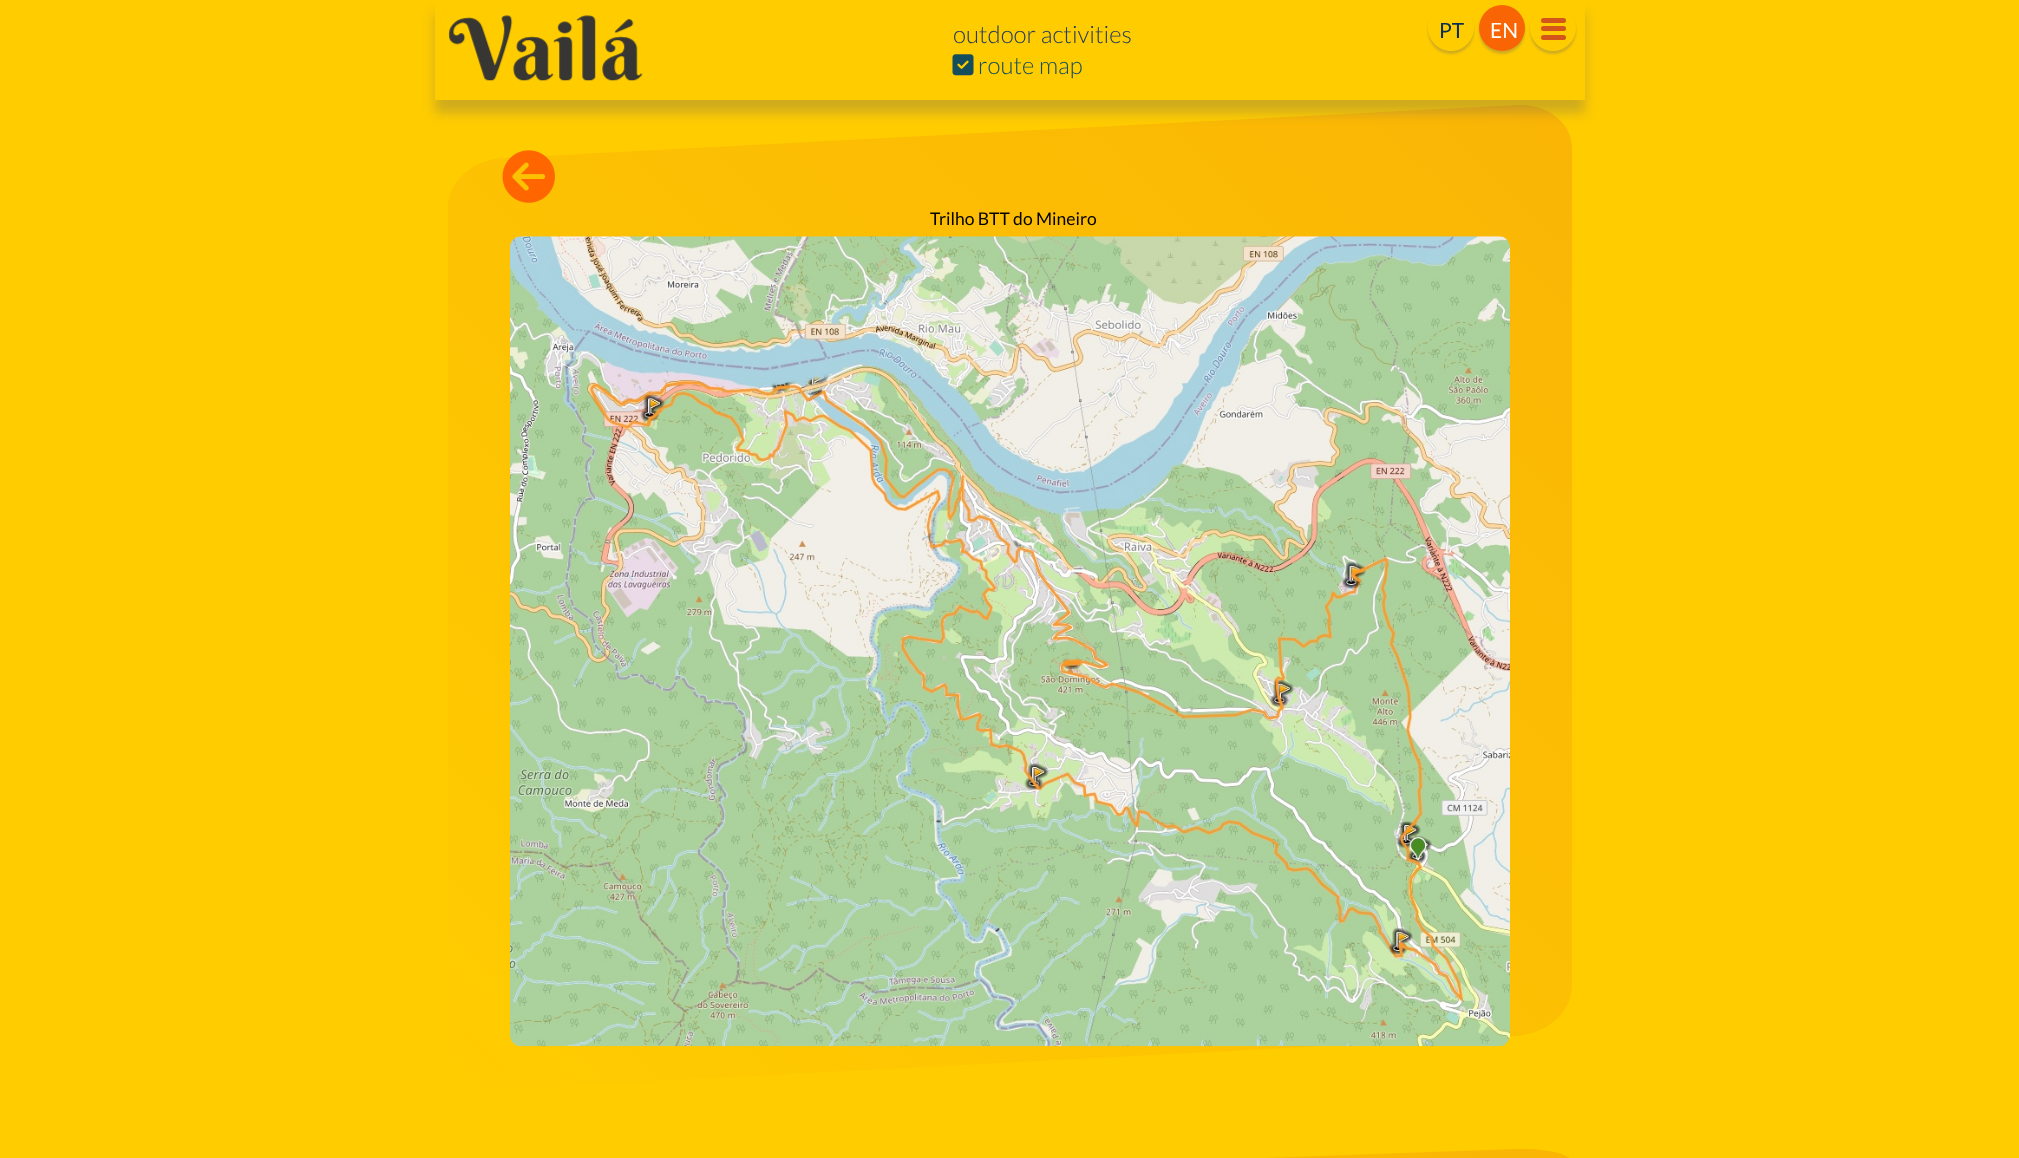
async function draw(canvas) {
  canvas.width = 2019;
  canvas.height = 1158;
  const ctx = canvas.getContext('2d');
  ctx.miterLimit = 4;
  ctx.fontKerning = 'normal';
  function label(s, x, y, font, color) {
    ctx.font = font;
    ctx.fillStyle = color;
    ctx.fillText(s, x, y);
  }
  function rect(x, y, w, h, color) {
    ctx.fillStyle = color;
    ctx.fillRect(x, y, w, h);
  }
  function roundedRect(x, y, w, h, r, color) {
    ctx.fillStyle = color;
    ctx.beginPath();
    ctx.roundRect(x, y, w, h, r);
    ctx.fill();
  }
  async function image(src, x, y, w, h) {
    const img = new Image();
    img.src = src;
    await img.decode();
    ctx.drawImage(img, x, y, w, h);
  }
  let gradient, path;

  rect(0, 0, 2019, 1158, '#fc0');
  gradient = ctx.createLinearGradient(496, 1138, 1524, 56);
  gradient.addColorStop(0, '#fc0');
  gradient.addColorStop(1, '#fab505');
  ctx.fillStyle = gradient;
  path = new Path2D('M504 158L1516 105C1547 103 1572 123 1572 148V986C1572 1012 1547 1034 1516 1036L504 1089C473 1090 448 1071 448 1045V207C448 182 473 159 504 158Z');
  ctx.fill(path);
  ctx.save();
  path = new Path2D('M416 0H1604V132H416ZM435 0H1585V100H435Z');
  ctx.clip(path, 'evenodd');
  ctx.fillStyle = '#6161614d';
  ctx.filter = 'blur(6px)';
  ctx.beginPath();
  ctx.rect(435, 13, 1150, 100);
  ctx.fill();
  ctx.filter = 'none';
  ctx.restore();
  await image('assets/img1.png', 448, 15, 195, 66);
  label('outdoor activities', 953, 43, '300 24px Lato', '#233b5e');
  ctx.save();
  path = new Path2D('M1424 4H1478V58H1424ZM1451 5C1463.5 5 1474 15.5 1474 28C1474 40.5 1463.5 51 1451 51C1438.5 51 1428 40.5 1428 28C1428 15.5 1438.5 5 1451 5Z');
  ctx.clip(path, 'evenodd');
  ctx.fillStyle = '#64635f4d';
  ctx.filter = 'blur(1px)';
  ctx.beginPath();
  ctx.roundRect(1428, 8, 46, 46, 23);
  ctx.fill();
  ctx.filter = 'none';
  ctx.restore();
  label('PT', 1439, 38, '21px Lato', '#082d52');
  ctx.fillStyle = '#64635f4d';
  ctx.filter = 'blur(1px)';
  ctx.beginPath();
  ctx.roundRect(1479, 8, 46, 46, 23);
  ctx.fill();
  ctx.filter = 'none';
  ctx.fillStyle = '#f96404';
  ctx.beginPath();
  ctx.arc(1502, 28, 23, 0, 2 * Math.PI);
  ctx.fill();
  label('EN', 1490, 38, '21px Lato', '#fefdf9');
  ctx.save();
  path = new Path2D('M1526 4H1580V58H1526ZM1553 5C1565.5 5 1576 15.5 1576 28C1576 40.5 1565.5 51 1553 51C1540.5 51 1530 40.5 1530 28C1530 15.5 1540.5 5 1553 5Z');
  ctx.clip(path, 'evenodd');
  ctx.fillStyle = '#64635f4d';
  ctx.filter = 'blur(1px)';
  ctx.beginPath();
  ctx.roundRect(1530, 8, 46, 46, 23);
  ctx.fill();
  ctx.filter = 'none';
  ctx.restore();
  roundedRect(1541, 18, 25, 5, 2.5, '#d45519');
  roundedRect(1541, 26, 25, 5, 2.5, '#d45519');
  roundedRect(1541, 35, 25, 5, 2.5, '#d45519');
  await image('assets/img2.png', 952, 54, 22, 22);
  label('route map', 978, 74, '300 24px Lato', '#144d5c');
  await image('assets/img3.png', 502, 150, 53, 53);
  label('Trilho BTT do Mineiro', 930, 225, '17.5px Lato', '#000');
  await image('assets/img4.png', 510, 236, 1000, 811);
  gradient = ctx.createLinearGradient(650, 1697, 1370, 952);
  gradient.addColorStop(0, '#fc0');
  gradient.addColorStop(1, '#fab505');
  ctx.fillStyle = gradient;
  path = new Path2D('M504 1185L1516 1149C1547 1148 1572 1154 1572 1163V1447C1572 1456 1547 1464 1516 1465L504 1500C473 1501 448 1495 448 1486V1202C448 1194 473 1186 504 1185Z');
  ctx.fill(path);
}

draw(document.querySelector('canvas'));
